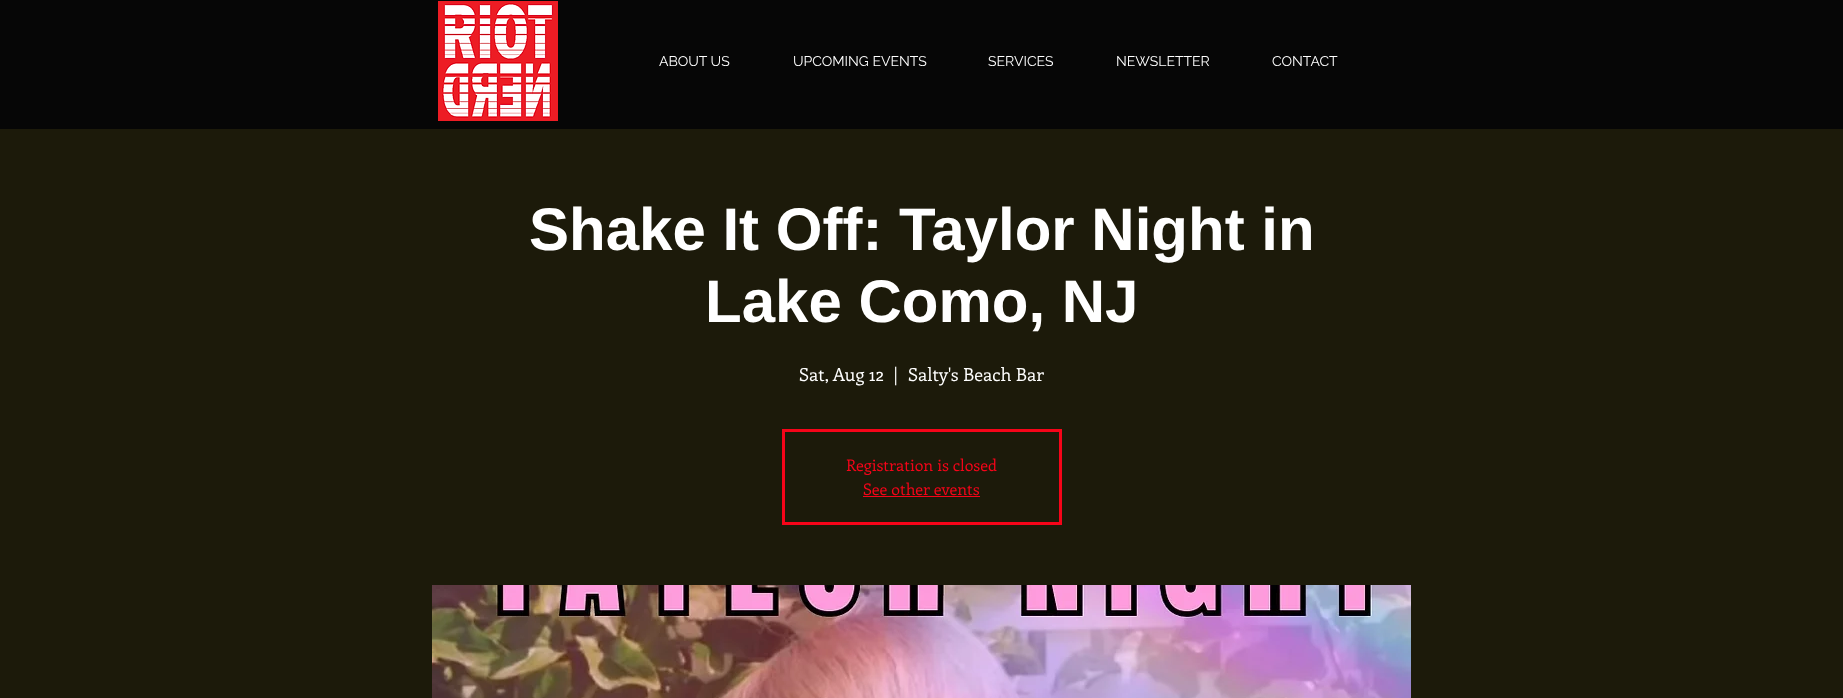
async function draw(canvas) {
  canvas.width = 1843;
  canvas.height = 698;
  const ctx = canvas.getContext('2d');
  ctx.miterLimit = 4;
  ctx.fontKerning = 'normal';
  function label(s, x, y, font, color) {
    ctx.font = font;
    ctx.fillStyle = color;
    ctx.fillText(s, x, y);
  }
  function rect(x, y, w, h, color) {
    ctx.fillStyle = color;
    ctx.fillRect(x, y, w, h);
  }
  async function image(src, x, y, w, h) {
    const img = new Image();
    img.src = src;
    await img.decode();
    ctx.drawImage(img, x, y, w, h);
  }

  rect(0, 0, 1843, 698, '#060606');
  await image('assets/img1.png', 438, 1, 120, 120);
  label('ABOUT US', 659, 66, '14px Raleway', '#fff');
  label('UPCOMING EVENTS', 793, 66, '14px Raleway', '#fff');
  label('SERVICES', 988, 66, '14px Raleway', '#fff');
  label('NEWSLETTER', 1116, 66, '14px Raleway', '#fff');
  label('CONTACT', 1272, 66, '14px Raleway', '#fff');
  rect(0, 129, 1843, 569, '#1c1a0a');
  label('Shake It Off: Taylor Night in', 529, 250, 'bold 60px Liberation Sans', '#fff');
  label('Lake Como, NJ', 705, 322, 'bold 60px Liberation Sans', '#fff');
  label('Sat, Aug 12', 799, 381, '18px Enriqueta', '#fff');
  label('|', 893, 381, '18px Enriqueta', '#fff');
  label('Salty\'s Beach Bar', 908, 381, '18px Enriqueta', '#fff');
  ctx.strokeStyle = '#f60419';
  ctx.lineWidth = 3;
  ctx.strokeRect(783.5, 430.5, 277, 93);
  label('Registration is closed', 846, 471, '16px Enriqueta', '#f60419');
  label('See other events', 863, 495, '16px Enriqueta', '#f60419');
  rect(863, 496, 117, 1, '#f60419');
  await image('assets/img2.png', 432, 585, 979, 113);
}

draw(document.querySelector('canvas'));
